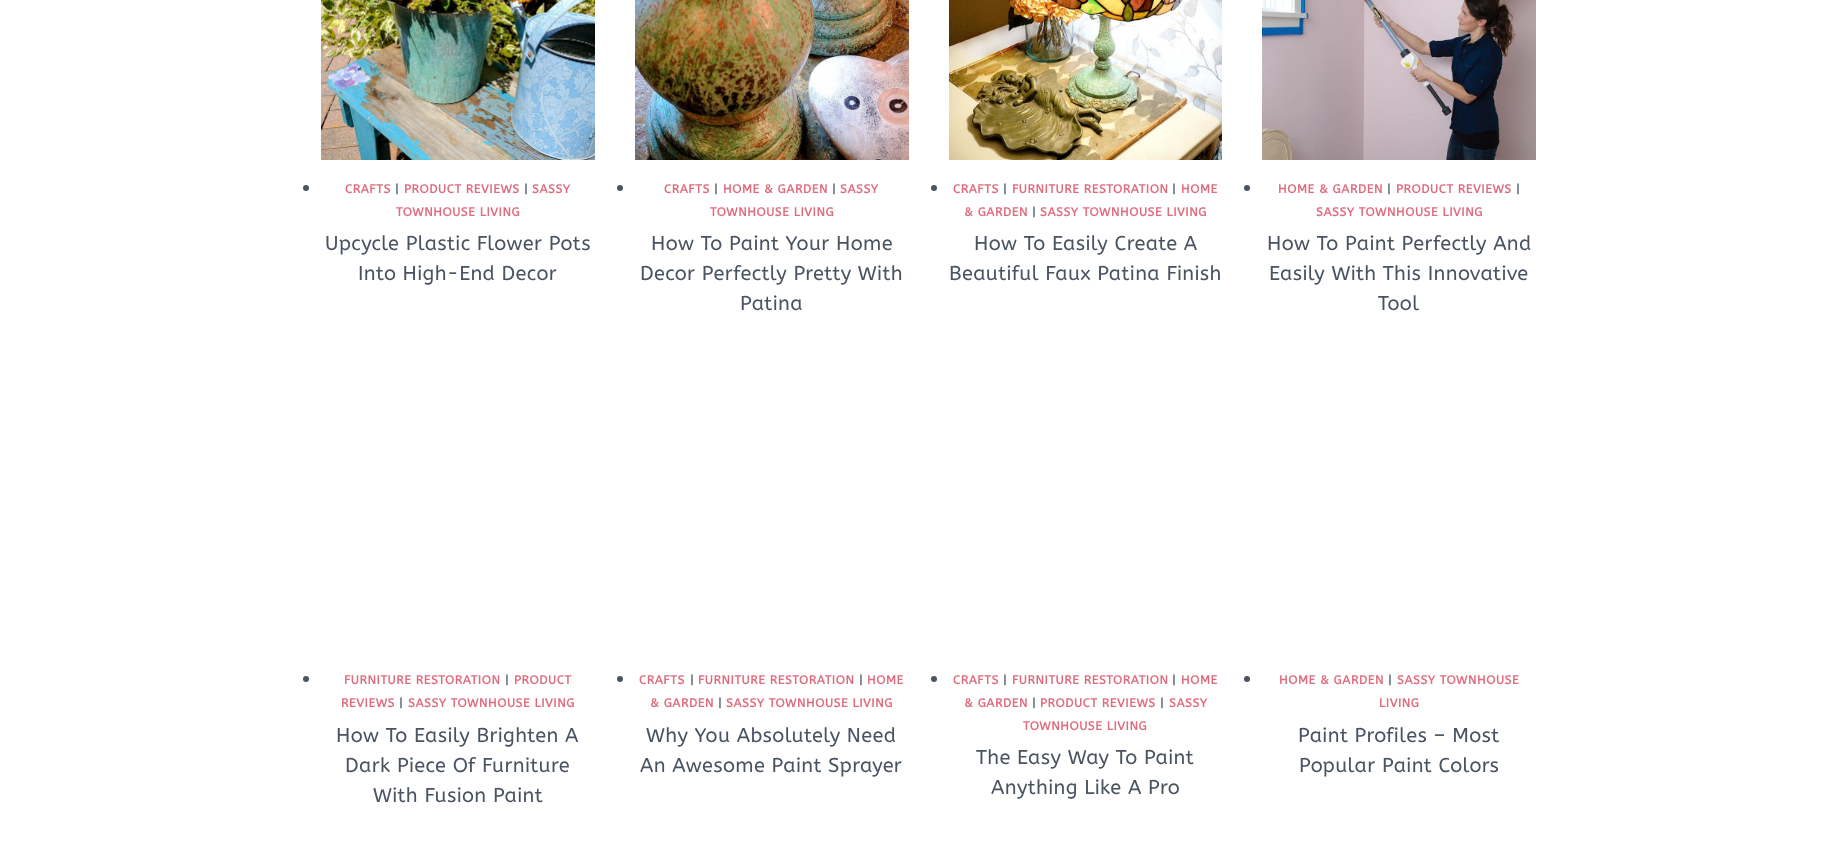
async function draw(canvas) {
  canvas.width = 1830;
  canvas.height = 849;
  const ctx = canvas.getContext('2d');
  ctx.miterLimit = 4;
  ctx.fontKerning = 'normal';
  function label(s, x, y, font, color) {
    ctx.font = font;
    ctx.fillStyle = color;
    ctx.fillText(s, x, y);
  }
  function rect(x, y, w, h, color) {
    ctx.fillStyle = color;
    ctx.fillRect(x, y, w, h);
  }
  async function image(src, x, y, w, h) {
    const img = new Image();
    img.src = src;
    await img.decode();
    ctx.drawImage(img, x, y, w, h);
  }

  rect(0, 0, 1830, 849, '#fff');
  ctx.fillStyle = '#4a5461';
  ctx.beginPath();
  ctx.arc(306, 188, 3, 0, 2 * Math.PI);
  ctx.fill();
  await image('assets/img1.png', 321, 0, 274, 160);
  ctx.letterSpacing = '0.6px';
  label('CRAFTS', 345, 193, 'bold 12px ABeeZee', '#df6c7e');
  label('|', 395, 193, 'bold 12px ABeeZee', '#4a5461');
  label('PRODUCT REVIEWS', 404, 193, 'bold 12px ABeeZee', '#df6c7e');
  label('|', 524, 193, 'bold 12px ABeeZee', '#4a5461');
  label('SASSY', 532, 193, 'bold 12px ABeeZee', '#df6c7e');
  label('TOWNHOUSE LIVING', 396, 216, 'bold 12px ABeeZee', '#df6c7e');
  ctx.letterSpacing = '0.35px';
  label('Upcycle Plastic Flower Pots', 325, 250, '20px ABeeZee', '#4a5461');
  label('Into High-End Decor', 358, 280, '20px ABeeZee', '#4a5461');
  ctx.beginPath();
  ctx.arc(620, 188, 3, 0, 2 * Math.PI);
  ctx.fill();
  await image('assets/img2.png', 635, 0, 274, 160);
  ctx.letterSpacing = '0.6px';
  label('CRAFTS', 664, 193, 'bold 12px ABeeZee', '#df6c7e');
  label('|', 714, 193, 'bold 12px ABeeZee', '#4a5461');
  label('HOME & GARDEN', 723, 193, 'bold 12px ABeeZee', '#df6c7e');
  label('|', 832, 193, 'bold 12px ABeeZee', '#4a5461');
  label('SASSY', 840, 193, 'bold 12px ABeeZee', '#df6c7e');
  label('TOWNHOUSE LIVING', 710, 216, 'bold 12px ABeeZee', '#df6c7e');
  ctx.letterSpacing = '0.35px';
  label('How To Paint Your Home', 651, 250, '20px ABeeZee', '#4a5461');
  label('Decor Perfectly Pretty With', 640, 280, '20px ABeeZee', '#4a5461');
  label('Patina', 740, 310, '20px ABeeZee', '#4a5461');
  ctx.beginPath();
  ctx.arc(934, 188, 3, 0, 2 * Math.PI);
  ctx.fill();
  await image('assets/img3.png', 949, 0, 273, 160);
  ctx.letterSpacing = '0.6px';
  label('CRAFTS', 953, 193, 'bold 12px ABeeZee', '#df6c7e');
  label('|', 1003, 193, 'bold 12px ABeeZee', '#4a5461');
  label('FURNITURE RESTORATION', 1012, 193, 'bold 12px ABeeZee', '#df6c7e');
  label('|', 1172, 193, 'bold 12px ABeeZee', '#4a5461');
  label('HOME', 1181, 193, 'bold 12px ABeeZee', '#df6c7e');
  label('& GARDEN', 964, 216, 'bold 12px ABeeZee', '#df6c7e');
  label('|', 1032, 216, 'bold 12px ABeeZee', '#4a5461');
  label('SASSY TOWNHOUSE LIVING', 1040, 216, 'bold 12px ABeeZee', '#df6c7e');
  ctx.letterSpacing = '0.35px';
  label('How To Easily Create A', 974, 250, '20px ABeeZee', '#4a5461');
  label('Beautiful Faux Patina Finish', 949, 280, '20px ABeeZee', '#4a5461');
  ctx.beginPath();
  ctx.arc(1247, 188, 3, 0, 2 * Math.PI);
  ctx.fill();
  await image('assets/img4.png', 1262, 0, 274, 160);
  ctx.letterSpacing = '0.6px';
  label('HOME & GARDEN', 1278, 193, 'bold 12px ABeeZee', '#df6c7e');
  label('|', 1387, 193, 'bold 12px ABeeZee', '#4a5461');
  label('PRODUCT REVIEWS', 1396, 193, 'bold 12px ABeeZee', '#df6c7e');
  label('|', 1516, 193, 'bold 12px ABeeZee', '#4a5461');
  label('SASSY TOWNHOUSE LIVING', 1316, 216, 'bold 12px ABeeZee', '#df6c7e');
  ctx.letterSpacing = '0.35px';
  label('How To Paint Perfectly And', 1267, 250, '20px ABeeZee', '#4a5461');
  label('Easily With This Innovative', 1269, 280, '20px ABeeZee', '#4a5461');
  label('Tool', 1378, 310, '20px ABeeZee', '#4a5461');
  ctx.beginPath();
  ctx.arc(306, 679, 3, 0, 2 * Math.PI);
  ctx.fill();
  ctx.letterSpacing = '0.6px';
  label('FURNITURE RESTORATION', 344, 684, 'bold 12px ABeeZee', '#df6c7e');
  label('|', 505, 684, 'bold 12px ABeeZee', '#4a5461');
  label('PRODUCT', 514, 684, 'bold 12px ABeeZee', '#df6c7e');
  label('REVIEWS', 341, 707, 'bold 12px ABeeZee', '#df6c7e');
  label('|', 399, 707, 'bold 12px ABeeZee', '#4a5461');
  label('SASSY TOWNHOUSE LIVING', 408, 707, 'bold 12px ABeeZee', '#df6c7e');
  ctx.letterSpacing = '0.35px';
  label('How To Easily Brighten A', 336, 742, '20px ABeeZee', '#4a5461');
  label('Dark Piece Of Furniture', 345, 772, '20px ABeeZee', '#4a5461');
  label('With Fusion Paint', 373, 802, '20px ABeeZee', '#4a5461');
  ctx.beginPath();
  ctx.arc(620, 679, 3, 0, 2 * Math.PI);
  ctx.fill();
  ctx.letterSpacing = '0.6px';
  label('CRAFTS', 639, 684, 'bold 12px ABeeZee', '#df6c7e');
  label('|', 690, 684, 'bold 12px ABeeZee', '#4a5461');
  label('FURNITURE RESTORATION', 698, 684, 'bold 12px ABeeZee', '#df6c7e');
  label('|', 859, 684, 'bold 12px ABeeZee', '#4a5461');
  label('HOME', 867, 684, 'bold 12px ABeeZee', '#df6c7e');
  label('& GARDEN', 650, 707, 'bold 12px ABeeZee', '#df6c7e');
  label('|', 718, 707, 'bold 12px ABeeZee', '#4a5461');
  label('SASSY TOWNHOUSE LIVING', 726, 707, 'bold 12px ABeeZee', '#df6c7e');
  ctx.letterSpacing = '0.35px';
  label('Why You Absolutely Need', 646, 742, '20px ABeeZee', '#4a5461');
  label('An Awesome Paint Sprayer', 640, 772, '20px ABeeZee', '#4a5461');
  ctx.beginPath();
  ctx.arc(934, 679, 3, 0, 2 * Math.PI);
  ctx.fill();
  ctx.letterSpacing = '0.6px';
  label('CRAFTS', 953, 684, 'bold 12px ABeeZee', '#df6c7e');
  label('|', 1003, 684, 'bold 12px ABeeZee', '#4a5461');
  label('FURNITURE RESTORATION', 1012, 684, 'bold 12px ABeeZee', '#df6c7e');
  label('|', 1172, 684, 'bold 12px ABeeZee', '#4a5461');
  label('HOME', 1181, 684, 'bold 12px ABeeZee', '#df6c7e');
  label('& GARDEN', 964, 707, 'bold 12px ABeeZee', '#df6c7e');
  label('|', 1032, 707, 'bold 12px ABeeZee', '#4a5461');
  label('PRODUCT REVIEWS', 1040, 707, 'bold 12px ABeeZee', '#df6c7e');
  label('|', 1160, 707, 'bold 12px ABeeZee', '#4a5461');
  label('SASSY', 1169, 707, 'bold 12px ABeeZee', '#df6c7e');
  label('TOWNHOUSE LIVING', 1023, 730, 'bold 12px ABeeZee', '#df6c7e');
  ctx.letterSpacing = '0.35px';
  label('The Easy Way To Paint', 976, 764, '20px ABeeZee', '#4a5461');
  label('Anything Like A Pro', 991, 794, '20px ABeeZee', '#4a5461');
  ctx.beginPath();
  ctx.arc(1247, 679, 3, 0, 2 * Math.PI);
  ctx.fill();
  ctx.letterSpacing = '0.6px';
  label('HOME & GARDEN', 1279, 684, 'bold 12px ABeeZee', '#df6c7e');
  label('|', 1388, 684, 'bold 12px ABeeZee', '#4a5461');
  label('SASSY TOWNHOUSE', 1397, 684, 'bold 12px ABeeZee', '#df6c7e');
  label('LIVING', 1379, 707, 'bold 12px ABeeZee', '#df6c7e');
  ctx.letterSpacing = '0.35px';
  label('Paint Profiles – Most', 1298, 742, '20px ABeeZee', '#4a5461');
  label('Popular Paint Colors', 1299, 772, '20px ABeeZee', '#4a5461');
}

draw(document.querySelector('canvas'));
